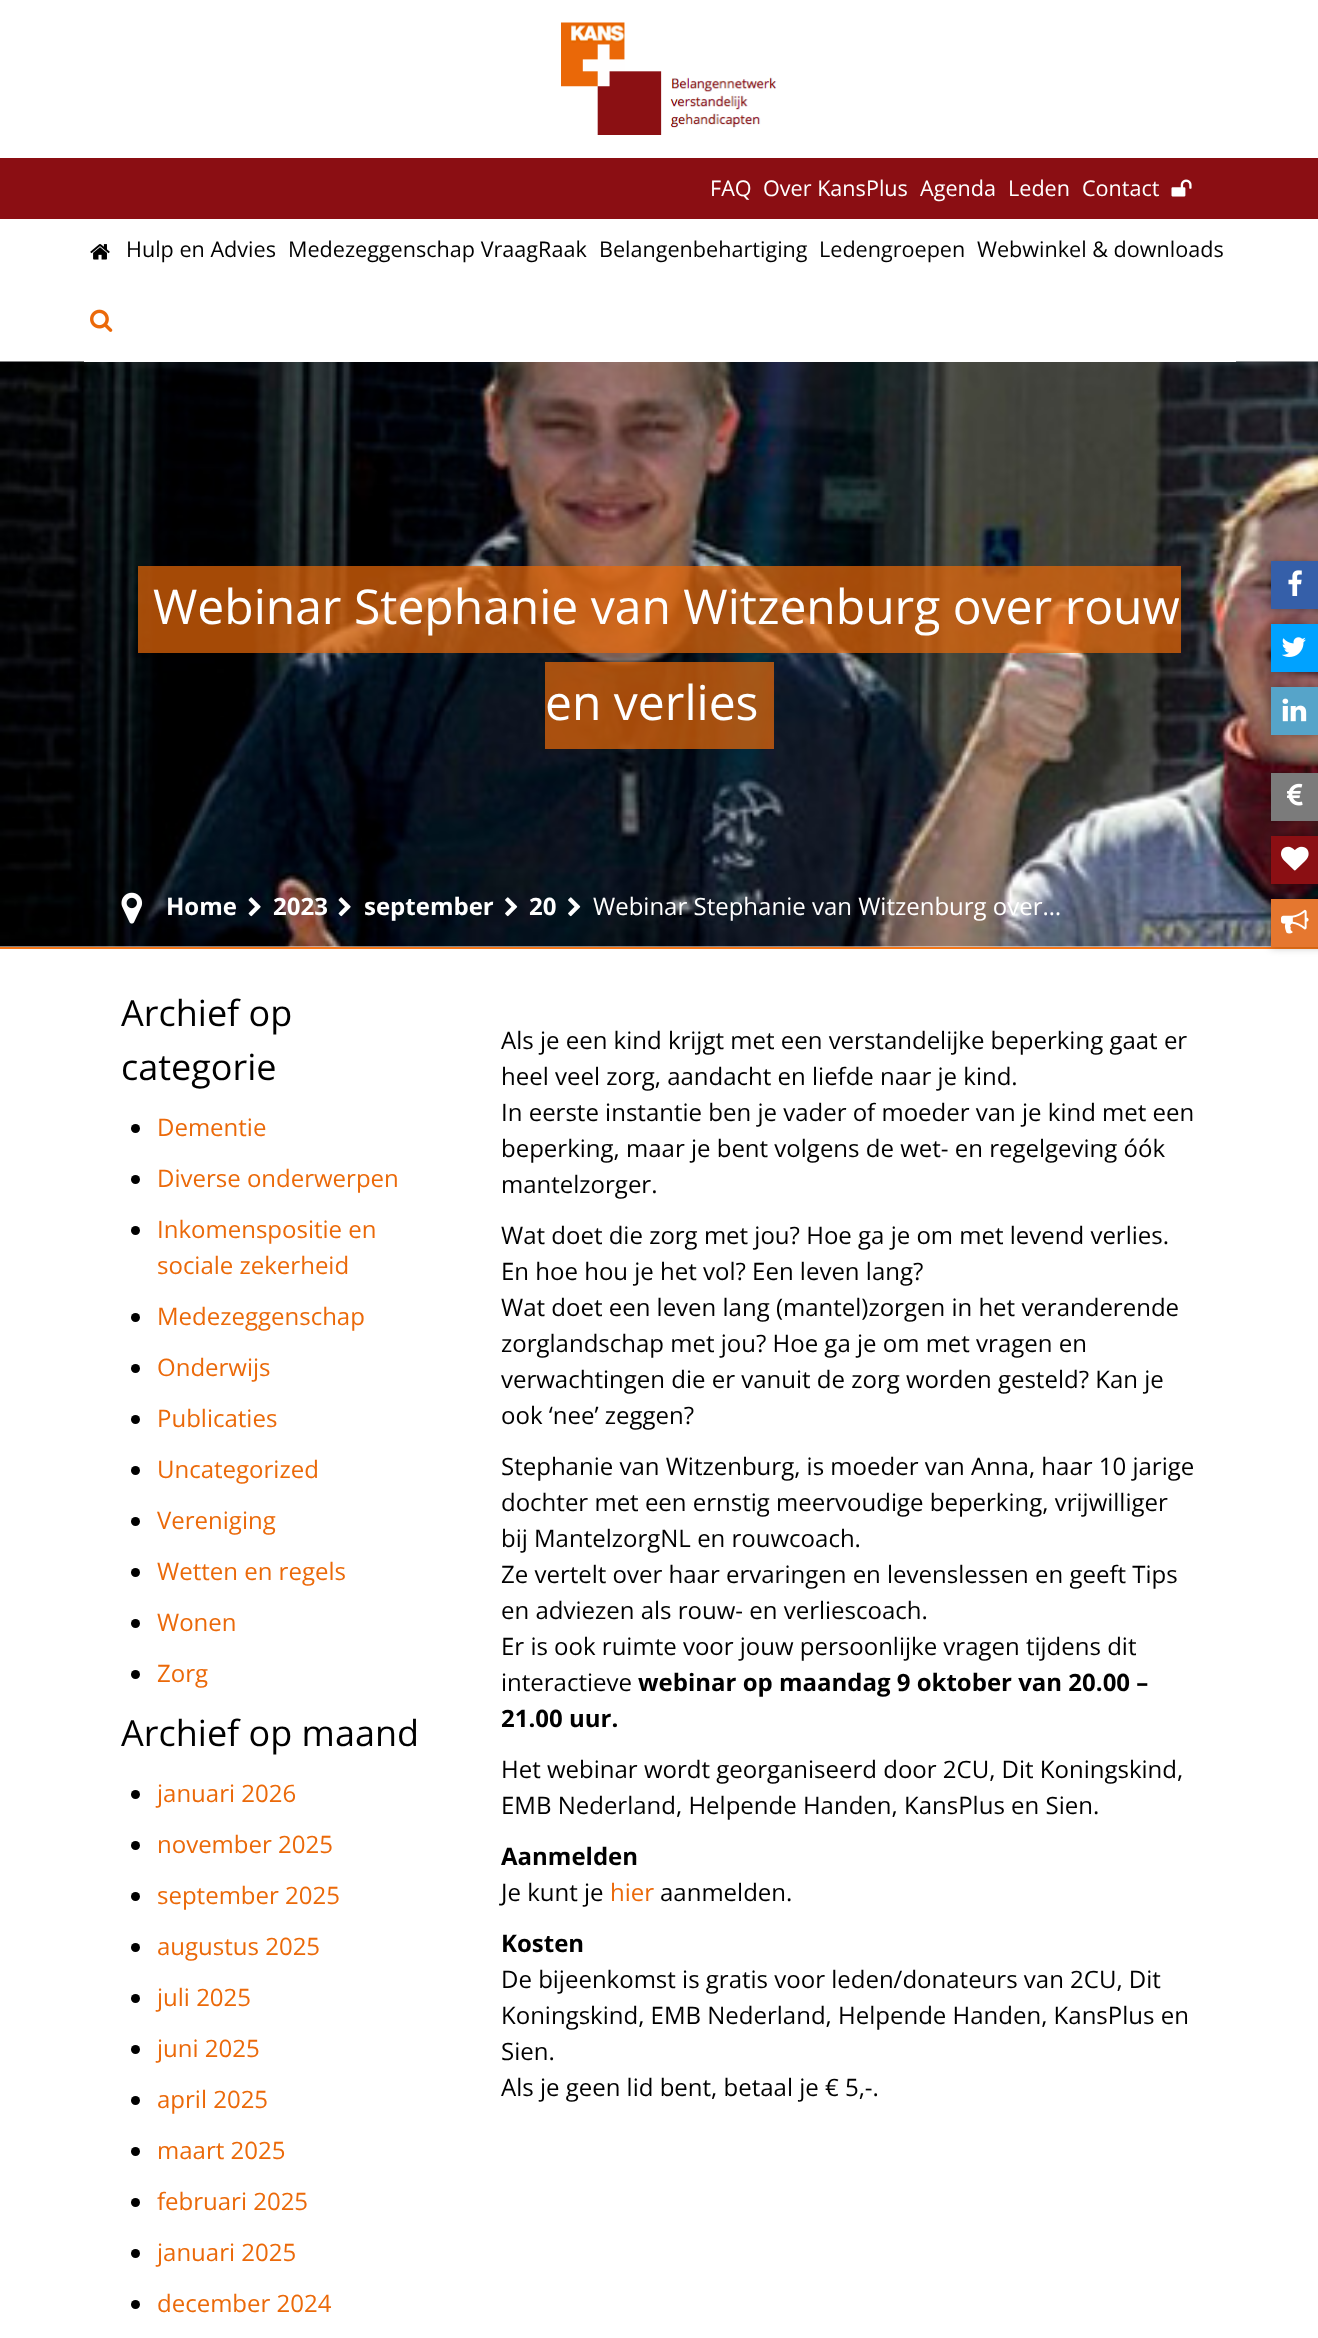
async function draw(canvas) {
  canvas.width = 1318;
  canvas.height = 2338;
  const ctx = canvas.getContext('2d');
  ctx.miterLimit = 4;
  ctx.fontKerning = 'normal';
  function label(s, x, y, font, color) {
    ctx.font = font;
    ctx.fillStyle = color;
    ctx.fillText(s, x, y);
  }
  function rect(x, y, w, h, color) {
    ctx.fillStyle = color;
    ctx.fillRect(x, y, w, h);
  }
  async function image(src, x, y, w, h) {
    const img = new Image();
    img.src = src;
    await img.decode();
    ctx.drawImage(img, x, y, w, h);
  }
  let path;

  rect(0, 0, 1318, 2338, '#fff');
  ctx.save();
  path = new Path2D('M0 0H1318V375H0ZM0 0H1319V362H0Z');
  ctx.clip(path, 'evenodd');
  ctx.fillStyle = '#0000004d';
  ctx.filter = 'blur(4px)';
  ctx.beginPath();
  ctx.rect(0, 0, 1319, 362);
  ctx.fill();
  ctx.filter = 'none';
  ctx.restore();
  await image('assets/img1.png', 561, 22, 216, 113);
  await image('assets/img5.png', 0, 361, 1318, 586);
  rect(84, 361, 1152, 1, '#fff');
  rect(0, 158, 84, 61, '#8b0e13');
  rect(84, 158, 1234, 61, '#8b0e13');
  label('FAQ', 710, 196, '21.6px Open Sans', '#fff');
  label('Over KansPlus', 763, 196, '21.6px Open Sans', '#fff');
  label('Agenda', 920, 196, '21.6px Open Sans', '#fff');
  label('Leden', 1008, 196, '21.6px Open Sans', '#fff');
  label('Contact', 1082, 196, '21.6px Open Sans', '#fff');
  await image('assets/img2.png', 1171, 179, 21, 18);
  await image('assets/img3.png', 90, 244, 20, 16);
  label('Hulp en Advies', 126, 257, '21.6px Open Sans', '#000');
  label('Medezeggenschap VraagRaak', 288, 257, '21.6px Open Sans', '#000');
  label('Belangenbehartiging', 599, 257, '21.6px Open Sans', '#000');
  label('Ledengroepen', 819, 257, '21.6px Open Sans', '#000');
  label('Webwinkel & downloads', 977, 257, '21.6px Open Sans', '#000');
  await image('assets/img4.png', 90, 309, 23, 23);
  rect(138, 566, 1043, 87, '#eb6909b3');
  label('Webinar Stephanie van Witzenburg over rouw', 153, 624, '48px Open Sans', '#fff');
  rect(545, 662, 229, 87, '#eb6909b3');
  label('en verlies', 545, 720, '48px Open Sans', '#fff');
  await image('assets/img6.png', 121, 892, 22, 32);
  label('Home', 166, 915, 'bold 24px Open Sans', '#fff');
  await image('assets/img7.png', 248, 897, 13, 20);
  label('2023', 273, 915, 'bold 24px Open Sans', '#fff');
  await image('assets/img8.png', 338, 897, 13, 20);
  label('september', 364, 915, 'bold 24px Open Sans', '#fff');
  await image('assets/img9.png', 505, 897, 13, 20);
  label('20', 529, 915, 'bold 24px Open Sans', '#fff');
  await image('assets/img10.png', 568, 897, 13, 20);
  label('Webinar Stephanie van Witzenburg over…', 593, 915, '24px Open Sans', '#fff');
  ctx.fillStyle = '#0000004d';
  ctx.filter = 'blur(4px)';
  ctx.beginPath();
  ctx.rect(1271, 561, 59, 48);
  ctx.fill();
  ctx.filter = 'none';
  rect(1271, 561, 47, 48, '#355fa9');
  await image('assets/img11.png', 1288, 570, 14, 26);
  ctx.fillStyle = '#0000004d';
  ctx.filter = 'blur(4px)';
  ctx.beginPath();
  ctx.rect(1271, 624, 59, 48);
  ctx.fill();
  ctx.filter = 'none';
  rect(1271, 624, 47, 48, '#00a2ff');
  await image('assets/img12.png', 1282, 637, 24, 20);
  ctx.fillStyle = '#0000004d';
  ctx.filter = 'blur(4px)';
  ctx.beginPath();
  ctx.rect(1271, 687, 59, 48);
  ctx.fill();
  ctx.filter = 'none';
  rect(1271, 687, 47, 48, '#56a4c9');
  await image('assets/img13.png', 1282, 698, 25, 24);
  ctx.fillStyle = '#0000004d';
  ctx.filter = 'blur(4px)';
  ctx.beginPath();
  ctx.rect(1271, 773, 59, 48);
  ctx.fill();
  ctx.filter = 'none';
  rect(1271, 773, 47, 48, '#7b7b7b');
  await image('assets/img14.png', 1287, 783, 16, 23);
  ctx.fillStyle = '#0000004d';
  ctx.filter = 'blur(4px)';
  ctx.beginPath();
  ctx.rect(1271, 836, 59, 48);
  ctx.fill();
  ctx.filter = 'none';
  rect(1271, 836, 47, 48, '#8b0f13');
  await image('assets/img15.png', 1281, 846, 28, 25);
  rect(0, 947, 1318, 2, '#f67617');
  ctx.fillStyle = '#0000004d';
  ctx.filter = 'blur(4px)';
  ctx.beginPath();
  ctx.rect(1271, 899, 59, 48);
  ctx.fill();
  ctx.filter = 'none';
  rect(1271, 899, 47, 48, '#e5772f');
  await image('assets/img16.png', 1281, 909, 28, 25);
  label('Archief op', 121, 1026, '36px Open Sans', '#000');
  label('categorie', 121, 1080, '36px Open Sans', '#000');
  ctx.beginPath();
  ctx.arc(135.5, 1128.5, 4.5, 0, 2 * Math.PI);
  ctx.fill();
  label('Dementie', 157, 1136, '24px Open Sans', '#eb6909');
  ctx.fillStyle = '#000';
  ctx.beginPath();
  ctx.arc(135.5, 1179.5, 4.5, 0, 2 * Math.PI);
  ctx.fill();
  label('Diverse onderwerpen', 157, 1187, '24px Open Sans', '#eb6909');
  ctx.fillStyle = '#000';
  ctx.beginPath();
  ctx.arc(135.5, 1230.5, 4.5, 0, 2 * Math.PI);
  ctx.fill();
  label('Inkomenspositie en', 157, 1238, '24px Open Sans', '#eb6909');
  label('sociale zekerheid', 157, 1274, '24px Open Sans', '#eb6909');
  ctx.fillStyle = '#000';
  ctx.beginPath();
  ctx.arc(135.5, 1317.5, 4.5, 0, 2 * Math.PI);
  ctx.fill();
  label('Medezeggenschap', 157, 1325, '24px Open Sans', '#eb6909');
  ctx.fillStyle = '#000';
  ctx.beginPath();
  ctx.arc(135.5, 1368.5, 4.5, 0, 2 * Math.PI);
  ctx.fill();
  label('Onderwijs', 157, 1376, '24px Open Sans', '#eb6909');
  ctx.fillStyle = '#000';
  ctx.beginPath();
  ctx.arc(135.5, 1419.5, 4.5, 0, 2 * Math.PI);
  ctx.fill();
  label('Publicaties', 157, 1427, '24px Open Sans', '#eb6909');
  ctx.fillStyle = '#000';
  ctx.beginPath();
  ctx.arc(135.5, 1470.5, 4.5, 0, 2 * Math.PI);
  ctx.fill();
  label('Uncategorized', 157, 1478, '24px Open Sans', '#eb6909');
  ctx.fillStyle = '#000';
  ctx.beginPath();
  ctx.arc(135.5, 1521.5, 4.5, 0, 2 * Math.PI);
  ctx.fill();
  label('Vereniging', 157, 1529, '24px Open Sans', '#eb6909');
  ctx.fillStyle = '#000';
  ctx.beginPath();
  ctx.arc(135.5, 1572.5, 4.5, 0, 2 * Math.PI);
  ctx.fill();
  label('Wetten en regels', 157, 1580, '24px Open Sans', '#eb6909');
  ctx.fillStyle = '#000';
  ctx.beginPath();
  ctx.arc(135.5, 1623.5, 4.5, 0, 2 * Math.PI);
  ctx.fill();
  label('Wonen', 157, 1631, '24px Open Sans', '#eb6909');
  ctx.fillStyle = '#000';
  ctx.beginPath();
  ctx.arc(135.5, 1674.5, 4.5, 0, 2 * Math.PI);
  ctx.fill();
  label('Zorg', 157, 1682, '24px Open Sans', '#eb6909');
  label('Archief op maand', 121, 1746, '36px Open Sans', '#000');
  ctx.beginPath();
  ctx.arc(135.5, 1794.5, 4.5, 0, 2 * Math.PI);
  ctx.fill();
  label('januari 2026', 157, 1802, '24px Open Sans', '#eb6909');
  ctx.fillStyle = '#000';
  ctx.beginPath();
  ctx.arc(135.5, 1845.5, 4.5, 0, 2 * Math.PI);
  ctx.fill();
  label('november 2025', 157, 1853, '24px Open Sans', '#eb6909');
  ctx.fillStyle = '#000';
  ctx.beginPath();
  ctx.arc(135.5, 1896.5, 4.5, 0, 2 * Math.PI);
  ctx.fill();
  label('september 2025', 157, 1904, '24px Open Sans', '#eb6909');
  ctx.fillStyle = '#000';
  ctx.beginPath();
  ctx.arc(135.5, 1947.5, 4.5, 0, 2 * Math.PI);
  ctx.fill();
  label('augustus 2025', 157, 1955, '24px Open Sans', '#eb6909');
  ctx.fillStyle = '#000';
  ctx.beginPath();
  ctx.arc(135.5, 1998.5, 4.5, 0, 2 * Math.PI);
  ctx.fill();
  label('juli 2025', 157, 2006, '24px Open Sans', '#eb6909');
  ctx.fillStyle = '#000';
  ctx.beginPath();
  ctx.arc(135.5, 2049.5, 4.5, 0, 2 * Math.PI);
  ctx.fill();
  label('juni 2025', 157, 2057, '24px Open Sans', '#eb6909');
  ctx.fillStyle = '#000';
  ctx.beginPath();
  ctx.arc(135.5, 2100.5, 4.5, 0, 2 * Math.PI);
  ctx.fill();
  label('april 2025', 157, 2108, '24px Open Sans', '#eb6909');
  ctx.fillStyle = '#000';
  ctx.beginPath();
  ctx.arc(135.5, 2151.5, 4.5, 0, 2 * Math.PI);
  ctx.fill();
  label('maart 2025', 157, 2159, '24px Open Sans', '#eb6909');
  ctx.fillStyle = '#000';
  ctx.beginPath();
  ctx.arc(135.5, 2202.5, 4.5, 0, 2 * Math.PI);
  ctx.fill();
  label('februari 2025', 157, 2210, '24px Open Sans', '#eb6909');
  ctx.fillStyle = '#000';
  ctx.beginPath();
  ctx.arc(135.5, 2253.5, 4.5, 0, 2 * Math.PI);
  ctx.fill();
  label('januari 2025', 157, 2261, '24px Open Sans', '#eb6909');
  ctx.fillStyle = '#000';
  ctx.beginPath();
  ctx.arc(135.5, 2304.5, 4.5, 0, 2 * Math.PI);
  ctx.fill();
  label('december 2024', 157, 2312, '24px Open Sans', '#eb6909');
  label('Als je een kind krijgt met een verstandelijke beperking gaat er', 501, 1049, '24px Open Sans', '#000');
  label('heel veel zorg, aandacht en liefde naar je kind.', 501, 1085, '24px Open Sans', '#000');
  label('In eerste instantie ben je vader of moeder van je kind met een', 501, 1121, '24px Open Sans', '#000');
  label('beperking, maar je bent volgens de wet- en regelgeving óók', 501, 1157, '24px Open Sans', '#000');
  label('mantelzorger.', 501, 1193, '24px Open Sans', '#000');
  label('Wat doet die zorg met jou? Hoe ga je om met levend verlies.', 501, 1244, '24px Open Sans', '#000');
  label('En hoe hou je het vol? Een leven lang?', 501, 1280, '24px Open Sans', '#000');
  label('Wat doet een leven lang (mantel)zorgen in het veranderende', 501, 1316, '24px Open Sans', '#000');
  label('zorglandschap met jou? Hoe ga je om met vragen en', 501, 1352, '24px Open Sans', '#000');
  label('verwachtingen die er vanuit de zorg worden gesteld? Kan je', 501, 1388, '24px Open Sans', '#000');
  label('ook ‘nee’ zeggen?', 501, 1424, '24px Open Sans', '#000');
  label('Stephanie van Witzenburg, is moeder van Anna, haar 10 jarige', 501, 1475, '24px Open Sans', '#000');
  label('dochter met een ernstig meervoudige beperking, vrijwilliger', 501, 1511, '24px Open Sans', '#000');
  label('bij MantelzorgNL en rouwcoach.', 501, 1547, '24px Open Sans', '#000');
  label('Ze vertelt over haar ervaringen en levenslessen en geeft Tips', 501, 1583, '24px Open Sans', '#000');
  label('en adviezen als rouw- en verliescoach.', 501, 1619, '24px Open Sans', '#000');
  label('Er is ook ruimte voor jouw persoonlijke vragen tijdens dit', 501, 1655, '24px Open Sans', '#000');
  label('interactieve', 501, 1691, '24px Open Sans', '#000');
  label('webinar op maandag 9 oktober van 20.00 –', 638, 1691, 'bold 24px Open Sans', '#000');
  label('21.00 uur.', 501, 1727, 'bold 24px Open Sans', '#000');
  label('Het webinar wordt georganiseerd door 2CU, Dit Koningskind,', 501, 1778, '24px Open Sans', '#000');
  label('EMB Nederland, Helpende Handen, KansPlus en Sien.', 501, 1814, '24px Open Sans', '#000');
  label('Aanmelden', 501, 1865, 'bold 24px Open Sans', '#000');
  label('Je kunt je', 501, 1901, '24px Open Sans', '#000');
  label('hier', 610, 1901, '24px Open Sans', '#eb6909');
  label('aanmelden.', 660, 1901, '24px Open Sans', '#000');
  label('Kosten', 501, 1952, 'bold 24px Open Sans', '#000');
  label('De bijeenkomst is gratis voor leden/donateurs van 2CU, Dit', 501, 1988, '24px Open Sans', '#000');
  label('Koningskind, EMB Nederland, Helpende Handen, KansPlus en', 501, 2024, '24px Open Sans', '#000');
  label('Sien.', 501, 2060, '24px Open Sans', '#000');
  label('Als je geen lid bent, betaal je € 5,-.', 501, 2096, '24px Open Sans', '#000');
}

draw(document.querySelector('canvas'));
